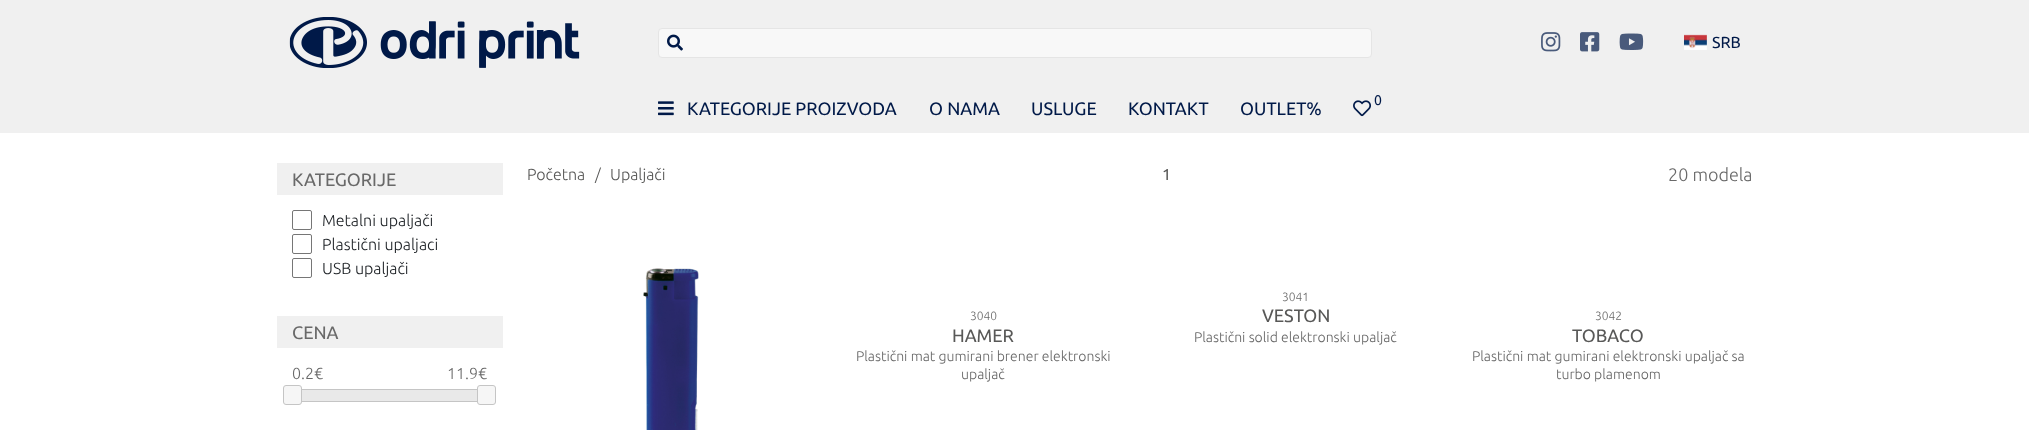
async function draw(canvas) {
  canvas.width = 2029;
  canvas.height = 430;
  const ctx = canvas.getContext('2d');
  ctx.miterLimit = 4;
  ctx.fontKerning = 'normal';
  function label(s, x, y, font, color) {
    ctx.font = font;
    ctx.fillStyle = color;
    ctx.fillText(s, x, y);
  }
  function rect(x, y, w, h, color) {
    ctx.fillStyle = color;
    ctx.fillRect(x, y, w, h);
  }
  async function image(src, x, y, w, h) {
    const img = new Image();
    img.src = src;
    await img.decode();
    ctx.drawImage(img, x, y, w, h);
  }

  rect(0, 0, 2029, 430, '#fff');
  rect(0, 0, 2029, 133, '#f0f0f0');
  await image('assets/img1.png', 289, 17, 291, 51);
  ctx.fillStyle = '#f8f8f8';
  ctx.beginPath();
  ctx.roundRect(658.5, 28.5, 713, 29, 3.5);
  ctx.fill();
  ctx.strokeStyle = '#e5e5e5';
  ctx.stroke();
  await image('assets/img2.png', 667, 34, 16, 17);
  await image('assets/img3.png', 1541, 32, 20, 20);
  await image('assets/img4.png', 1580, 32, 20, 20);
  await image('assets/img5.png', 1619, 33, 25, 17);
  await image('assets/img6.png', 1684, 34, 23, 16);
  label('SRB', 1712, 48, '16px Ubuntu', '#001948');
  await image('assets/img7.png', 1353, 100, 18, 17);
  label('0', 1374, 105, '14px Ubuntu', '#001948');
  await image('assets/img8.png', 658, 101, 16, 15);
  label('KATEGORIJE PROIZVODA', 687, 115, '18px Ubuntu', '#001948');
  label('O NAMA', 929, 115, '18px Ubuntu', '#001948');
  label('USLUGE', 1031, 115, '18px Ubuntu', '#001948');
  label('KONTAKT', 1128, 115, '18px Ubuntu', '#001948');
  label('OUTLET%', 1240, 115, '18px Ubuntu', '#001948');
  rect(277, 163, 226, 32, '#f0f0f0');
  label('KATEGORIJE', 292, 186, '18px Ubuntu', '#696969');
  ctx.beginPath();
  ctx.roundRect(292.5, 210.5, 19, 19, 1.5);
  ctx.strokeStyle = '#767676';
  ctx.stroke();
  label('Metalni upaljači', 322, 226, '300 16px Ubuntu', '#212529');
  ctx.beginPath();
  ctx.roundRect(292.5, 234.5, 19, 19, 1.5);
  ctx.stroke();
  label('Plastični upaljaci', 322, 250, '300 16px Ubuntu', '#212529');
  ctx.beginPath();
  ctx.roundRect(292.5, 258.5, 19, 19, 1.5);
  ctx.stroke();
  label('USB upaljači', 322, 274, '300 16px Ubuntu', '#212529');
  rect(277, 316, 226, 32, '#f0f0f0');
  label('CENA', 292, 339, '18px Ubuntu', '#696969');
  label('0.2€', 292, 379, '300 16px Ubuntu', '#696969');
  label('11.9€', 447, 379, '300 16px Ubuntu', '#696969');
  ctx.strokeStyle = '#c5c5c5';
  ctx.strokeRect(292.5, 389.5, 195, 12);
  ctx.fillStyle = '#f6f6f6';
  ctx.beginPath();
  ctx.roundRect(283.5, 385.5, 18, 19, 2.5);
  ctx.fill();
  ctx.stroke();
  rect(302, 390, 175, 11, '#e9e9e9');
  ctx.fillStyle = '#f6f6f6';
  ctx.beginPath();
  ctx.roundRect(477.5, 385.5, 18, 19, 2.5);
  ctx.fill();
  ctx.stroke();
  label('Početna', 527, 180, '300 16px Ubuntu', '#585857');
  label('/', 595, 180, '300 16px Ubuntu', '#585857');
  label('Upaljači', 610, 180, '300 16px Ubuntu', '#585857');
  label('1', 1162, 180, '16px Ubuntu', '#585857');
  label('20 modela', 1668, 181, '300 18px Ubuntu', '#696969');
  await image('assets/img9.png', 643, 268, 56, 162);
  label('3040', 970, 320, '300 12px Ubuntu', '#696969');
  label('HAMER', 952, 342, '18px Ubuntu', '#585857');
  label('Plastični mat gumirani brener elektronski', 856, 361, '300 14px Ubuntu', '#696969');
  label('upaljač', 961, 379, '300 14px Ubuntu', '#696969');
  label('3041', 1282, 301, '300 12px Ubuntu', '#696969');
  label('VESTON', 1262, 322, '18px Ubuntu', '#585857');
  label('Plastični solid elektronski upaljač', 1194, 342, '300 14px Ubuntu', '#696969');
  label('3042', 1595, 320, '300 12px Ubuntu', '#696969');
  label('TOBACO', 1572, 342, '18px Ubuntu', '#585857');
  label('Plastični mat gumirani elektronski upaljač sa', 1472, 361, '300 14px Ubuntu', '#696969');
  label('turbo plamenom', 1556, 379, '300 14px Ubuntu', '#696969');
}

draw(document.querySelector('canvas'));
